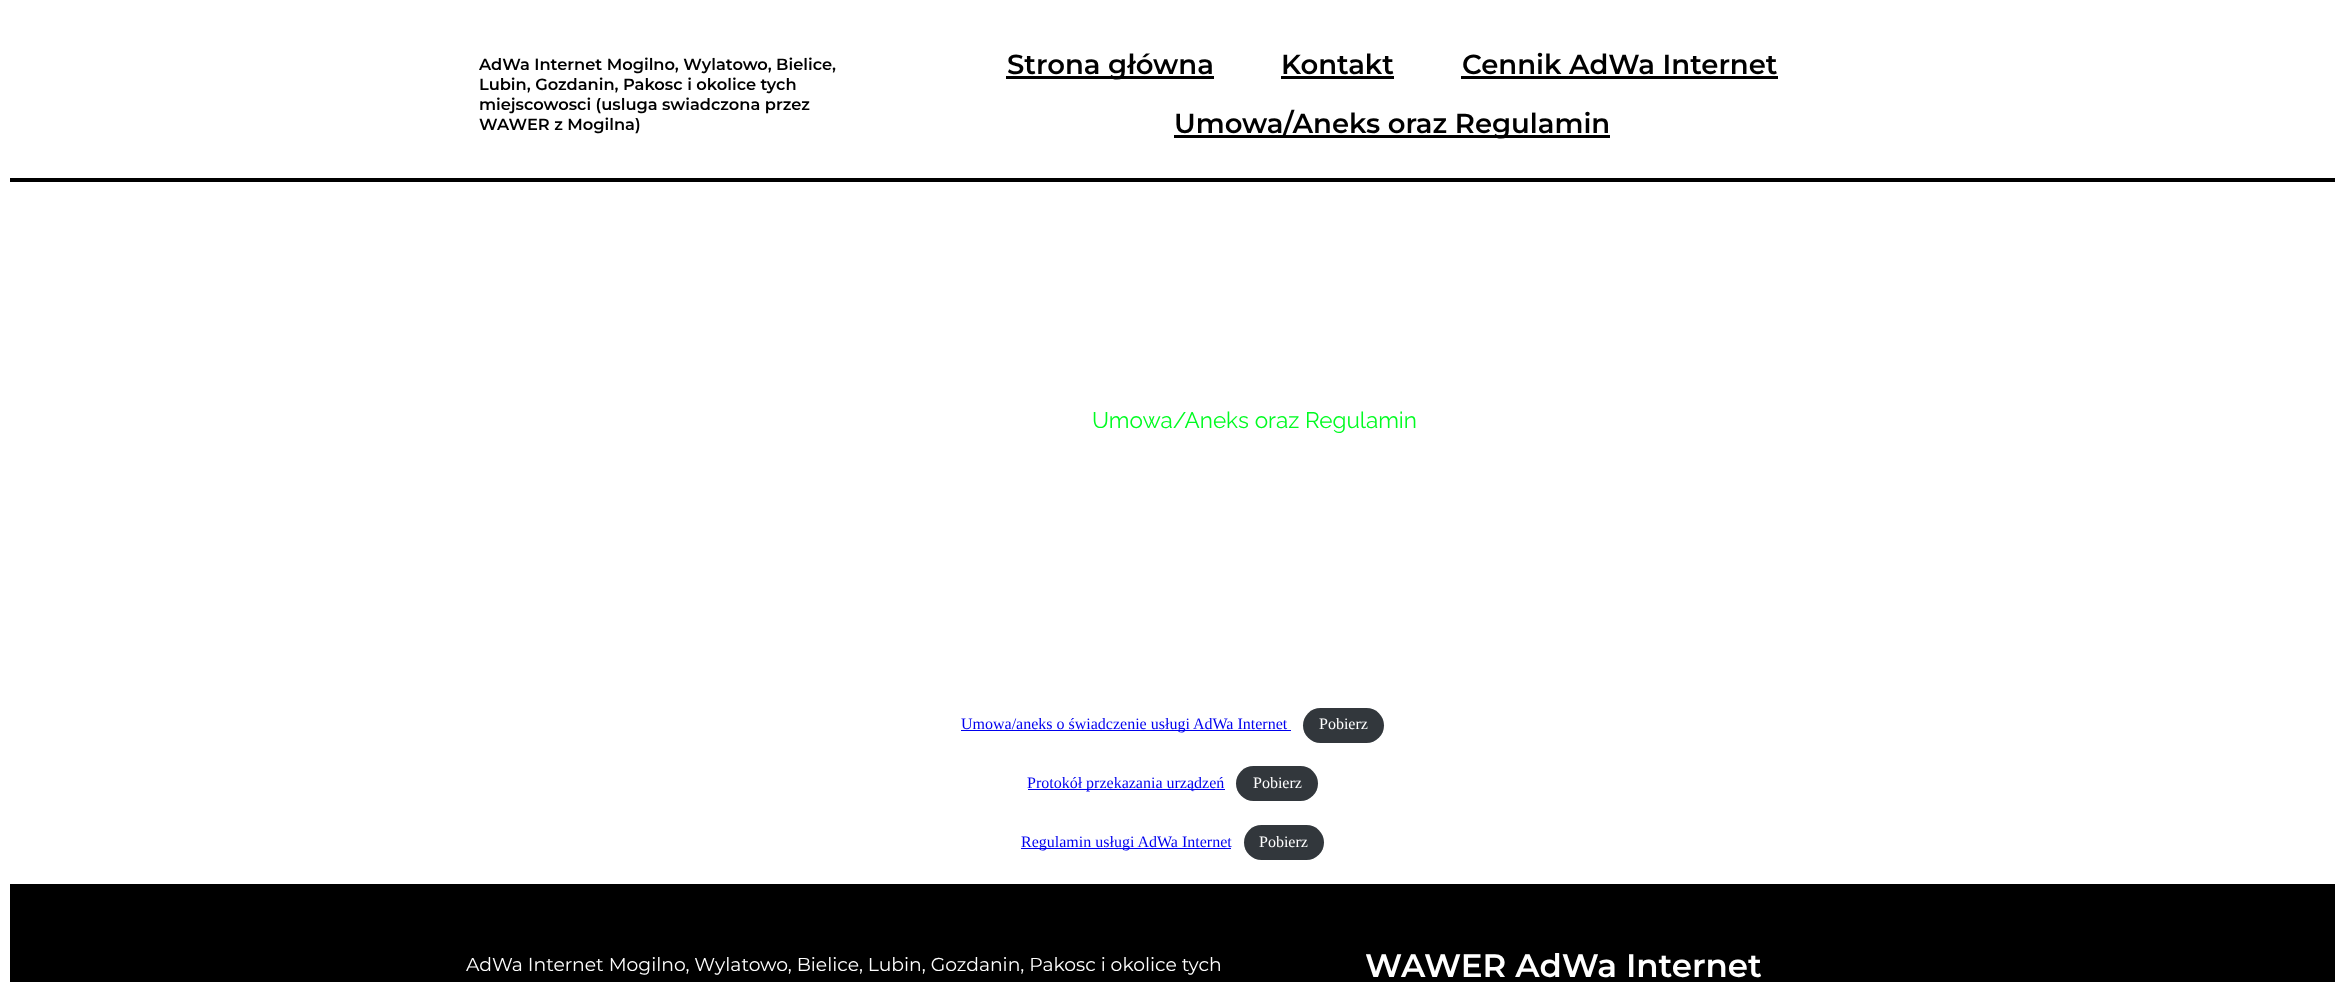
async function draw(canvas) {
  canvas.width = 2344;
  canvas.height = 982;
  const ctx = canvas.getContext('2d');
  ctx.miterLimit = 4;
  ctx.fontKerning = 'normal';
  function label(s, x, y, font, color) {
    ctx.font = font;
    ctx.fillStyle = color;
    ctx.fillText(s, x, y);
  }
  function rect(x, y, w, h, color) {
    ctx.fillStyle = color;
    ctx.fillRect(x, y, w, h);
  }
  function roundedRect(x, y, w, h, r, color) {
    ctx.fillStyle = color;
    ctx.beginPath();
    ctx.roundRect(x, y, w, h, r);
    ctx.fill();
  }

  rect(0, 0, 2344, 982, '#fff');
  rect(10, 178, 2325, 4, '#000');
  label('AdWa Internet Mogilno, Wylatowo, Bielice,', 479, 70, '600 16.25px Montserrat', '#000');
  label('Lubin, Gozdanin, Pakosc i okolice tych', 479, 90, '600 16.25px Montserrat', '#000');
  label('miejscowosci (usluga swiadczona przez', 479, 110, '600 16.25px Montserrat', '#000');
  label('WAWER z Mogilna)', 479, 130, '600 16.25px Montserrat', '#000');
  rect(1006, 76, 208, 3, '#000');
  label('Strona główna', 1007, 74, '600 27.5px Montserrat', '#000');
  label('Kontakt', 1281, 74, '600 27.5px Montserrat', '#000');
  rect(1281, 76, 113, 3, '#000');
  label('Cennik AdWa Internet', 1462, 74, '600 27.5px Montserrat', '#000');
  rect(1461, 76, 317, 3, '#000');
  rect(1174, 135, 436, 3, '#000');
  label('Umowa/Aneks oraz Regulamin', 1174, 133, '600 27.5px Montserrat', '#000');
  label('Umowa/Aneks oraz Regulamin', 1092, 428, '100 22.5px Raleway', '#00fb21');
  rect(961, 730, 330, 1, '#00e');
  label('Umowa/aneks o świadczenie usługi AdWa Internet', 961, 729, '16px Liberation Serif', '#00e');
  roundedRect(1303, 708, 81, 35, 17.5, '#32373c');
  label('Pobierz', 1319, 729, '16px Liberation Serif', '#fff');
  rect(1028, 789, 197, 1, '#00e');
  label('Protokół przekazania urządzeń', 1027, 788, '16px Liberation Serif', '#00e');
  roundedRect(1236, 766, 82, 35, 17.5, '#32373c');
  label('Pobierz', 1253, 788, '16px Liberation Serif', '#fff');
  rect(1021, 848, 210, 1, '#00e');
  label('Regulamin usługi AdWa Internet', 1021, 847, '16px Liberation Serif', '#00e');
  roundedRect(1244, 825, 80, 35, 17.5, '#32373c');
  label('Pobierz', 1259, 847, '16px Liberation Serif', '#fff');
  rect(10, 884, 2325, 98, '#000');
  label('AdWa Internet Mogilno, Wylatowo, Bielice, Lubin, Gozdanin, Pakosc i okolice tych', 466, 971, '18.75px Montserrat', '#fff');
  label('WAWER AdWa Internet', 1365, 977, '600 32.5px Montserrat', '#fff');
}

draw(document.querySelector('canvas'));
